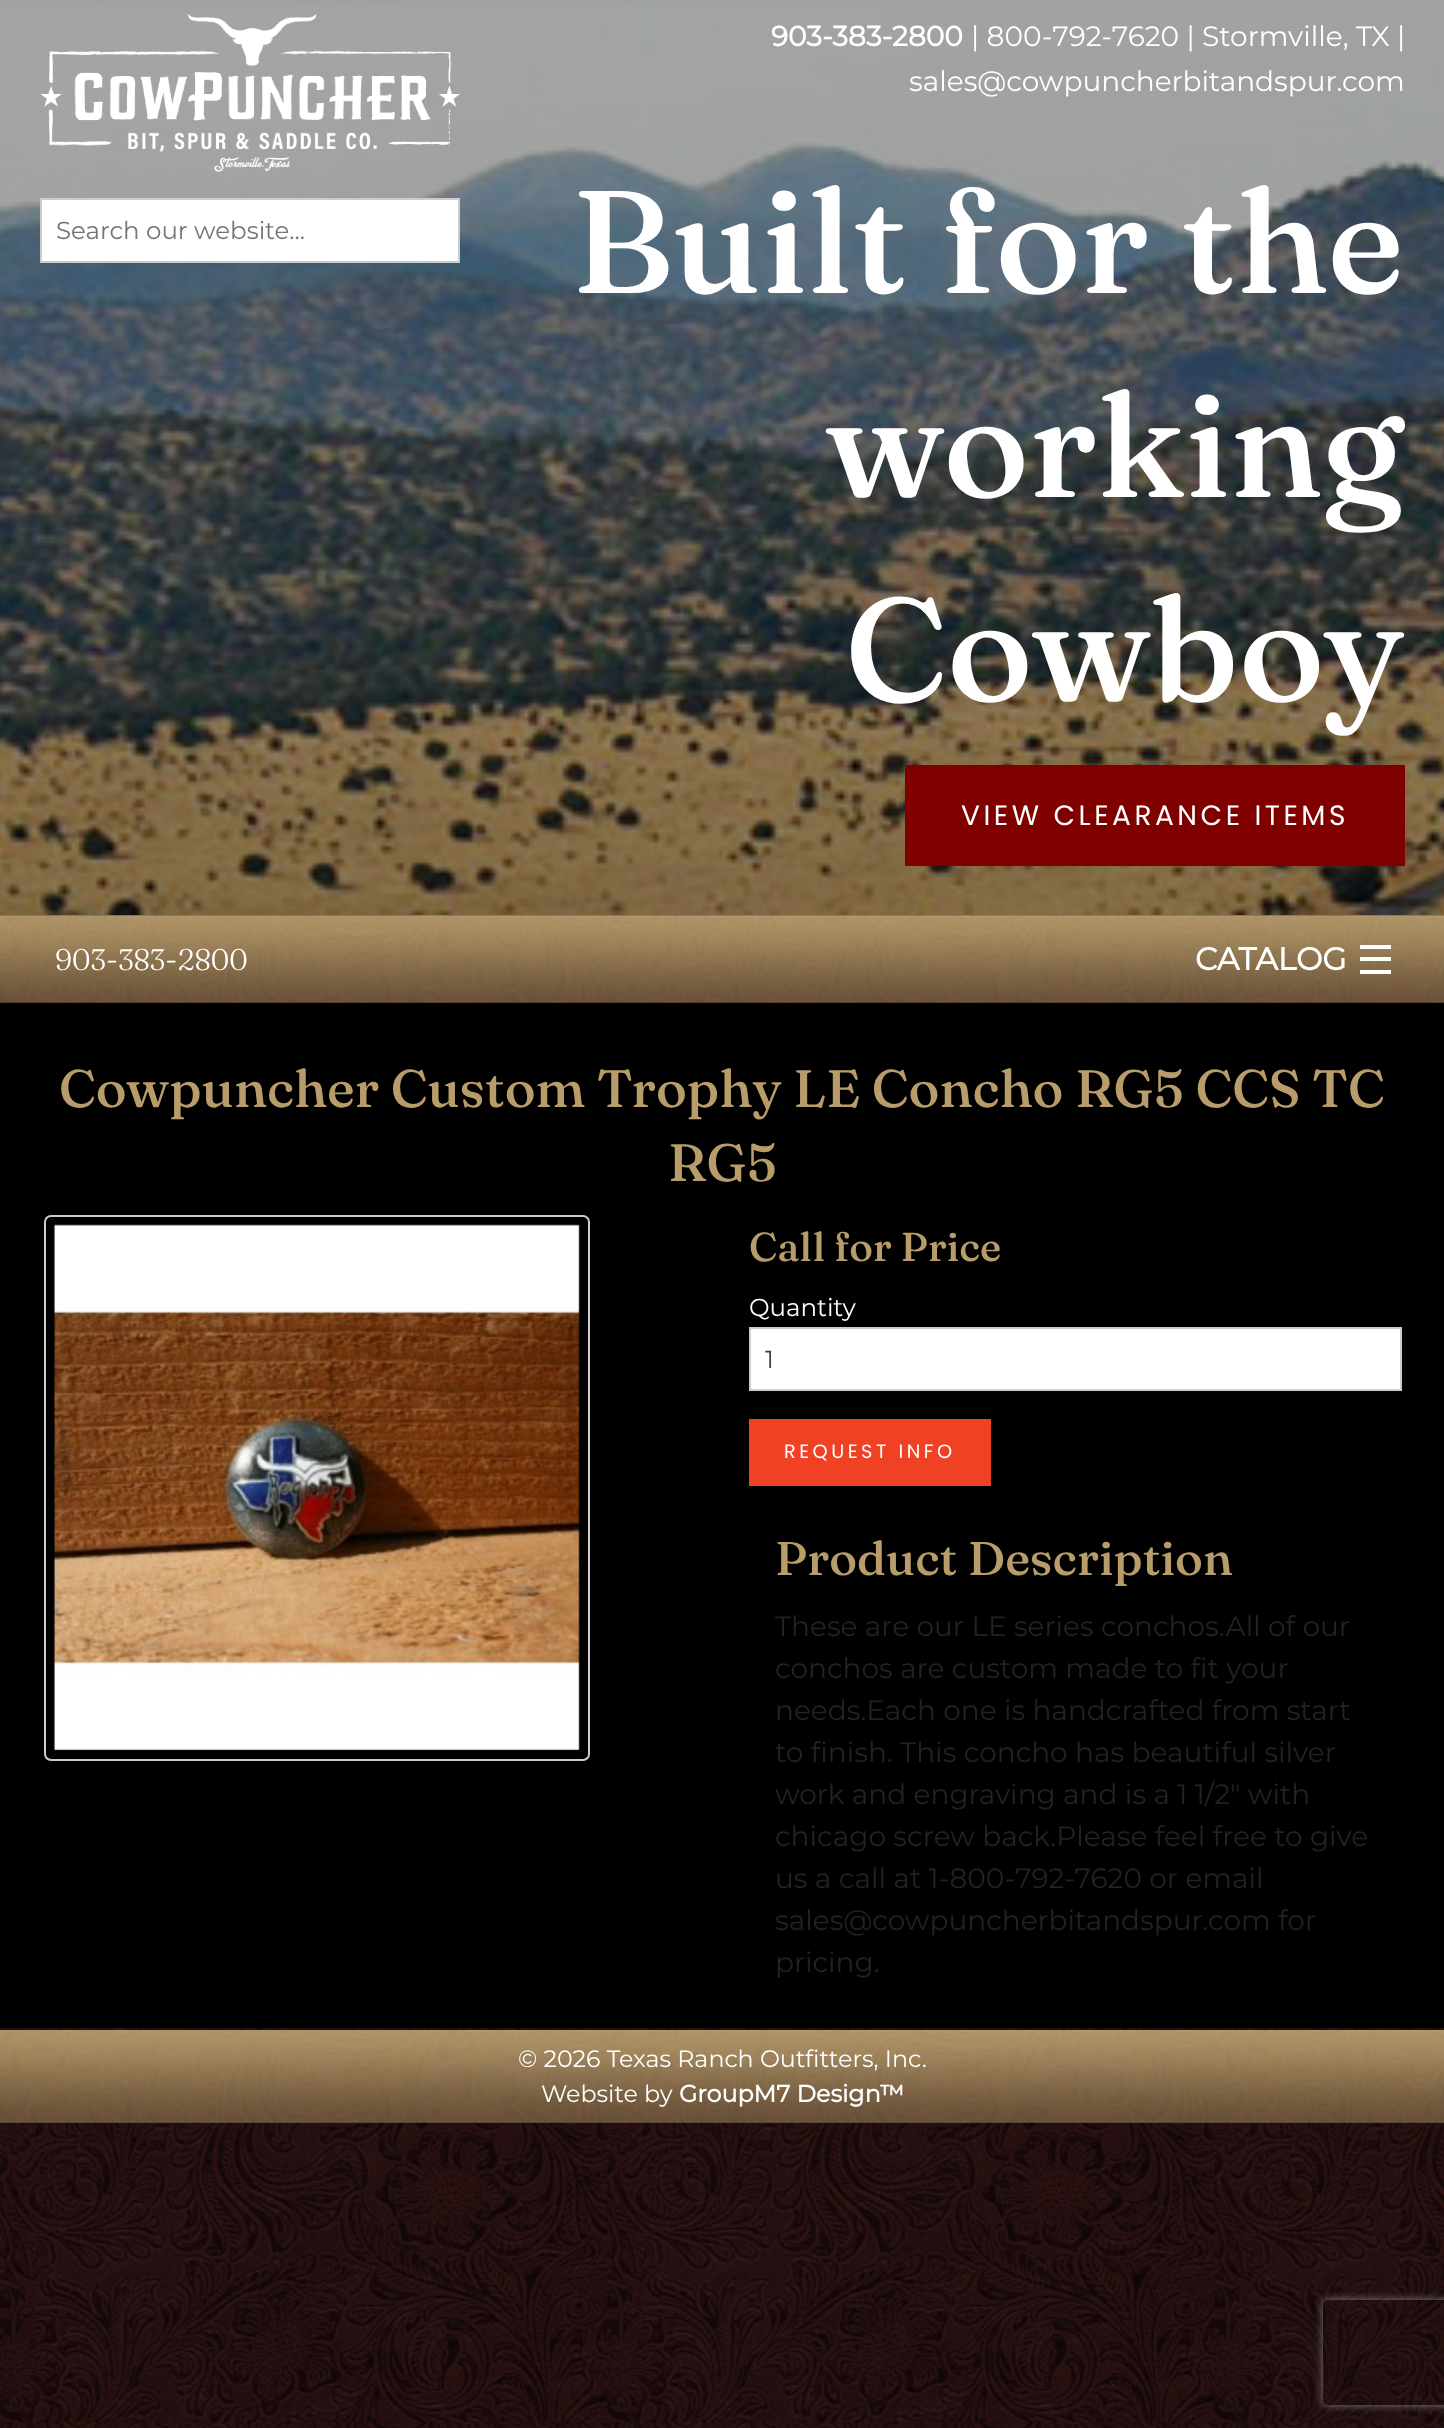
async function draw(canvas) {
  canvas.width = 1444;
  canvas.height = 2428;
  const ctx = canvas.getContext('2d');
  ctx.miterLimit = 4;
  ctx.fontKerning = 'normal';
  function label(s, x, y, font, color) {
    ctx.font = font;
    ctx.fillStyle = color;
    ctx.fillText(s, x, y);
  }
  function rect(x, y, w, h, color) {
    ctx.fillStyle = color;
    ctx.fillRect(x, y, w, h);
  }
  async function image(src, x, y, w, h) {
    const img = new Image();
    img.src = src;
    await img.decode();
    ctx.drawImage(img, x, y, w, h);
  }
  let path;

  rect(0, 0, 1444, 2428, '#fff');
  await image('assets/img1.png', 0, 915, 1444, 1513);
  await image('assets/img2.png', 0, 0, 1444, 916);
  await image('assets/img3.png', 40, 14, 420, 158);
  ctx.beginPath();
  ctx.rect(41, 199, 418, 63);
  ctx.fill();
  ctx.strokeStyle = '#ccc';
  ctx.lineWidth = 2;
  ctx.stroke();
  label('Search our website...', 56, 239, '100 24.5px Montserrat', '#757575');
  label('903-383-2800', 771, 46, 'bold 28px Montserrat', '#fff');
  label('| 800-792-7620 | Stormville, TX |', 971, 46, '100 28px Montserrat', '#fff');
  label('sales@cowpuncherbitandspur.com', 909, 91, '100 28px Montserrat', '#fff');
  label('Built for the', 571, 293, '500 145.75px Fraunces', '#fff');
  label('working', 825, 497, '500 145.75px Fraunces', '#fff');
  label('Cowboy', 845, 701, '500 145.75px Fraunces', '#fff');
  rect(905, 765, 500, 101, '#800000');
  ctx.letterSpacing = '3.5px';
  label('VIEW CLEARANCE ITEMS', 961, 825, '28px Poppins', '#fff');
  await image('assets/img4.png', 0, 915, 1444, 88);
  ctx.letterSpacing = '0px';
  label('903-383-2800', 55, 970, '300 29.75px Fraunces', '#fff');
  label('CATALOG', 1195, 970, 'bold 31.5px Montserrat', '#fff');
  rect(1360, 970, 31, 4, '#fff');
  rect(1360, 957, 31, 4, '#fff');
  rect(1360, 945, 31, 4, '#fff');
  rect(0, 1003, 1444, 1025, '#000');
  label('Cowpuncher Custom Trophy LE Concho RG5 CCS TC', 59, 1107, '500 52.5px Fraunces', '#b89c6a');
  label('RG5', 668, 1181, '500 52.5px Fraunces', '#b89c6a');
  ctx.beginPath();
  ctx.roundRect(45, 1216, 544, 544, 6);
  ctx.stroke();
  await image('assets/img5.png', 53, 1224, 527, 527);
  label('Call for Price', 749, 1261, '500 40.25px Fraunces', '#b89c6a');
  label('Quantity', 749, 1316, '100 24.5px Montserrat', '#fff');
  ctx.beginPath();
  ctx.rect(750, 1328, 651, 62);
  ctx.fill();
  ctx.stroke();
  label('1', 765, 1368, '100 24.5px Montserrat', '#404040');
  rect(749, 1419, 242, 67, '#f04124');
  ctx.letterSpacing = '3.5px';
  label('REQUEST INFO', 784, 1458, '19.25px Poppins', '#fff');
  ctx.letterSpacing = '0px';
  label('Product Description', 775, 1575, '500 47.25px Fraunces', '#b89c6a');
  label('These are our LE series conchos.All of our', 775, 1636, '100 28px Montserrat', '#222');
  label('conchos are custom made to fit your', 775, 1678, '100 28px Montserrat', '#222');
  label('needs.Each one is handcrafted from start', 775, 1720, '100 28px Montserrat', '#222');
  label('to finish. This concho has beautiful silver', 775, 1762, '100 28px Montserrat', '#222');
  label('work and engraving and is a 1 1/2" with', 775, 1804, '100 28px Montserrat', '#222');
  label('chicago screw back.Please feel free to give', 775, 1846, '100 28px Montserrat', '#222');
  label('us a call at 1-800-792-7620 or email', 775, 1888, '100 28px Montserrat', '#222');
  label('sales@cowpuncherbitandspur.com for', 775, 1930, '100 28px Montserrat', '#222');
  label('pricing.', 775, 1972, '100 28px Montserrat', '#222');
  await image('assets/img6.png', 0, 2030, 1444, 93);
  label('© 2026 Texas Ranch Outfitters, Inc.', 518, 2067, '100 23.75px Montserrat', '#fff');
  label('Website by', 541, 2102, '100 23.75px Montserrat', '#fff');
  label('GroupM7 Design™', 679, 2102, 'bold 23.75px Montserrat', '#fff');
  ctx.save();
  path = new Path2D('M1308 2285H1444V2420H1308ZM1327 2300H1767C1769 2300 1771 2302 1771 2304V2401C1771 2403 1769 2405 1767 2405H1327C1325 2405 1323 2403 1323 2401V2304C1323 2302 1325 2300 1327 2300Z');
  ctx.clip(path, 'evenodd');
  ctx.fillStyle = '#808080';
  ctx.filter = 'blur(4.5px)';
  ctx.beginPath();
  ctx.roundRect(1323, 2300, 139, 105, 4);
  ctx.fill();
  ctx.filter = 'none';
  ctx.restore();
}

draw(document.querySelector('canvas'));
